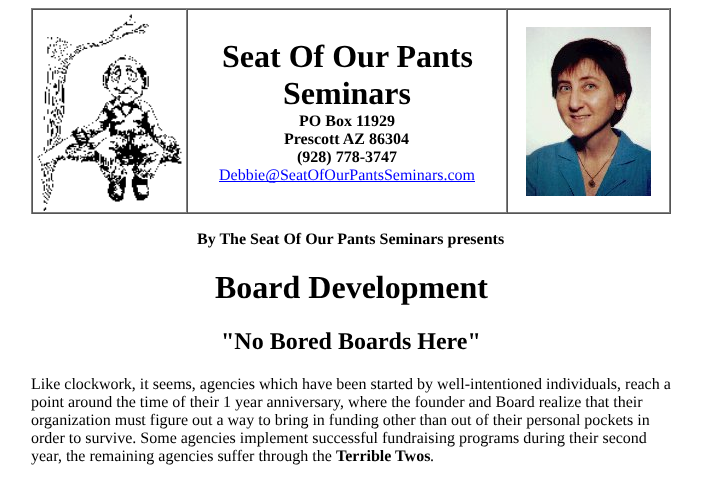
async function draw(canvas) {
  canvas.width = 702;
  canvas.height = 483;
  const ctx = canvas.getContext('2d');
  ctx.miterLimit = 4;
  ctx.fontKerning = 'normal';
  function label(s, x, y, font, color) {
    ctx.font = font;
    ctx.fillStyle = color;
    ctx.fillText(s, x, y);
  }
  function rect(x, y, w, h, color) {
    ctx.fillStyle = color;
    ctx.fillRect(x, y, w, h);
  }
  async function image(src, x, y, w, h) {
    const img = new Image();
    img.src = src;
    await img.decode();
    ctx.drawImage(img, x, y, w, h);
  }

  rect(0, 0, 702, 483, '#fff');
  rect(31, 8, 640, 1, '#808080');
  rect(670, 8, 1, 206, '#555');
  rect(31, 213, 640, 1, '#555');
  rect(31, 8, 1, 206, '#808080');
  rect(32, 9, 638, 1, '#555');
  rect(186, 9, 1, 204, '#808080');
  rect(32, 212, 155, 1, '#808080');
  rect(32, 9, 1, 204, '#555');
  await image('assets/img1.png', 37, 14, 145, 197);
  rect(506, 9, 1, 204, '#808080');
  rect(187, 212, 320, 1, '#808080');
  rect(187, 9, 1, 204, '#555');
  label('Seat Of Our Pants', 222, 67, 'bold 32px Liberation Serif', '#000');
  label('Seminars', 283, 104, 'bold 32px Liberation Serif', '#000');
  label('PO Box 11929', 299, 126, 'bold 16px Liberation Serif', '#000');
  label('Prescott AZ 86304', 284, 144, 'bold 16px Liberation Serif', '#000');
  label('(928) 778-3747', 297, 162, 'bold 16px Liberation Serif', '#000');
  rect(219, 181, 256, 1, '#00f');
  label('Debbie@SeatOfOurPantsSeminars.com', 219, 180, '16px Liberation Serif', '#00f');
  rect(669, 9, 1, 204, '#808080');
  rect(507, 212, 163, 1, '#808080');
  rect(507, 9, 1, 204, '#555');
  await image('assets/img2.png', 526, 27, 125, 169);
  label('By The Seat Of Our Pants Seminars presents', 197, 244, 'bold 16px Liberation Serif', '#000');
  label('Board Development', 215, 298, 'bold 32px Liberation Serif', '#000');
  label('"No Bored Boards Here"', 221, 349, 'bold 24px Liberation Serif', '#000');
  label('Like clockwork, it seems, agencies which have been started by well-intentioned individuals, reach a', 31, 389, '16px Liberation Serif', '#000');
  label('point around the time of their 1 year anniversary, where the founder and Board realize that their', 31, 407, '16px Liberation Serif', '#000');
  label('organization must figure out a way to bring in funding other than out of their personal pockets in', 31, 425, '16px Liberation Serif', '#000');
  label('order to survive. Some agencies implement successful fundraising programs during their second', 31, 443, '16px Liberation Serif', '#000');
  label('year, the remaining agencies suffer through the', 31, 461, '16px Liberation Serif', '#000');
  label('Terrible Twos', 336, 461, 'bold 16px Liberation Serif', '#000');
  label('.', 430, 461, '16px Liberation Serif', '#000');
}

draw(document.querySelector('canvas'));
